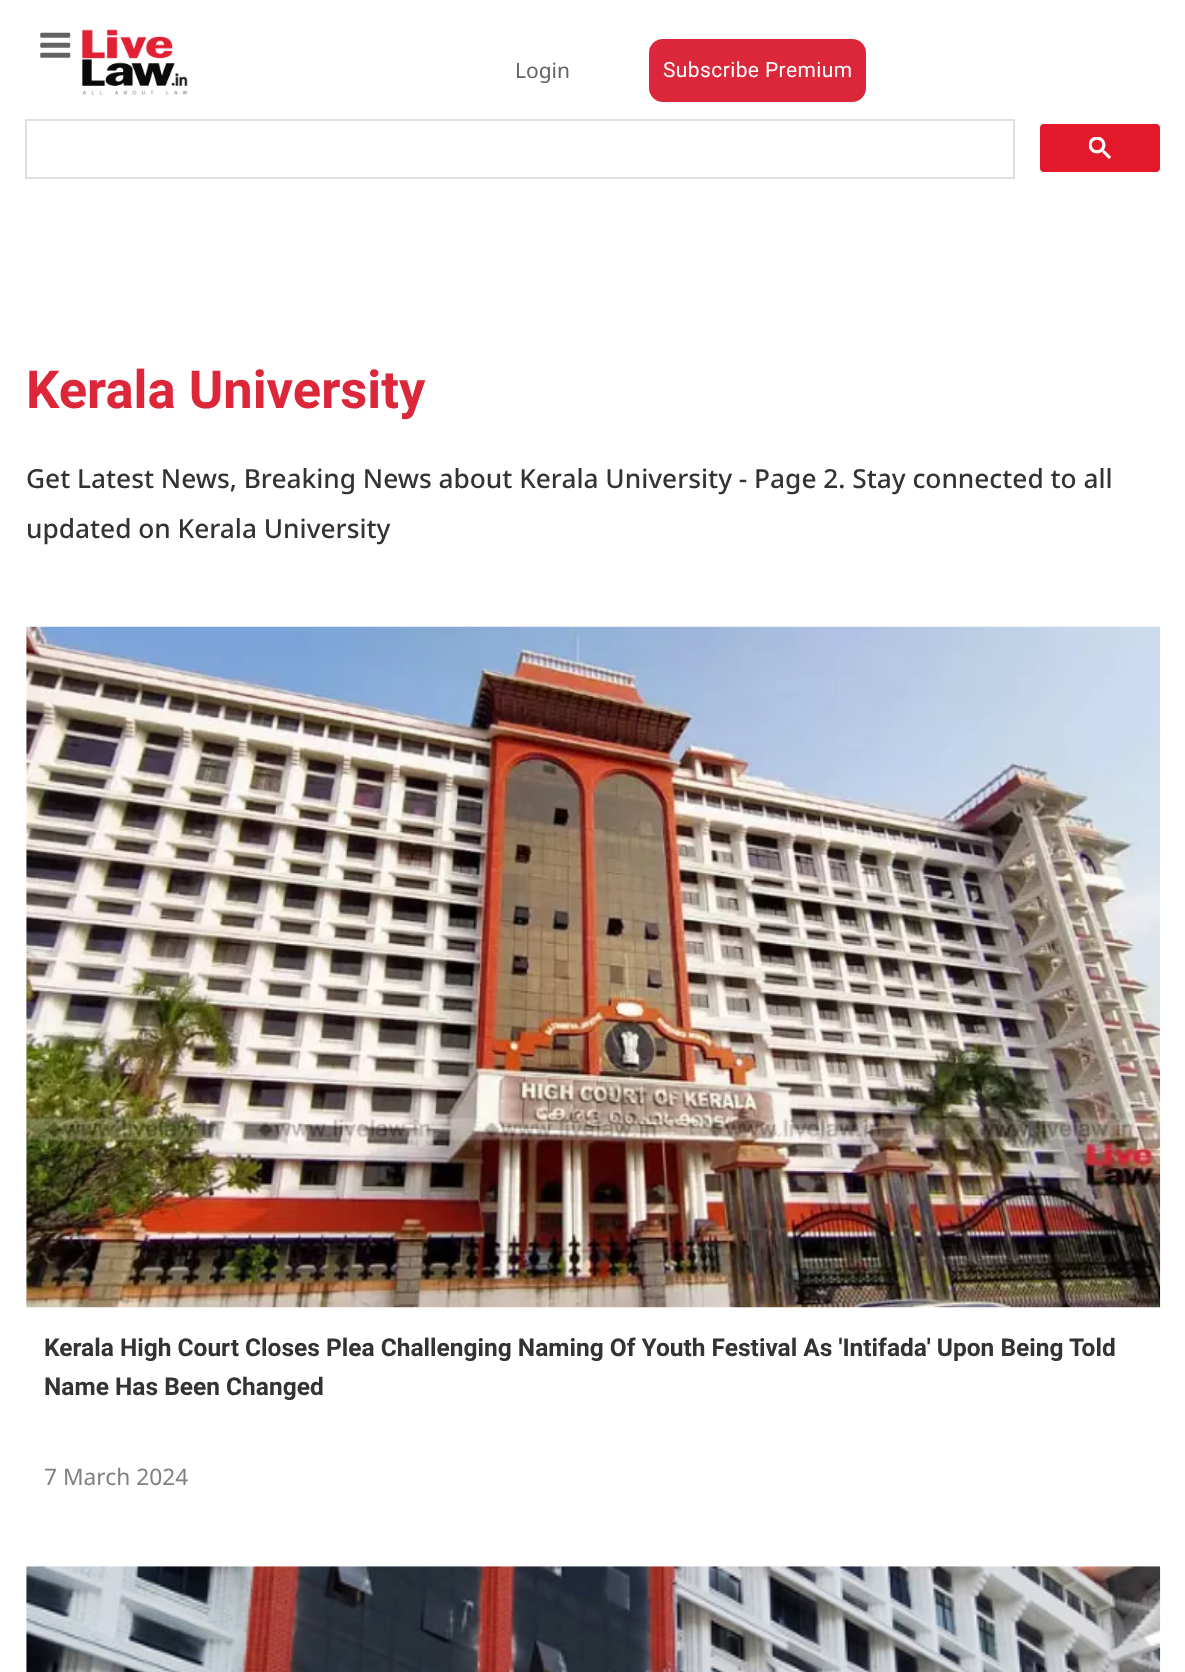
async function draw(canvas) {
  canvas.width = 1185;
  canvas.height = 1672;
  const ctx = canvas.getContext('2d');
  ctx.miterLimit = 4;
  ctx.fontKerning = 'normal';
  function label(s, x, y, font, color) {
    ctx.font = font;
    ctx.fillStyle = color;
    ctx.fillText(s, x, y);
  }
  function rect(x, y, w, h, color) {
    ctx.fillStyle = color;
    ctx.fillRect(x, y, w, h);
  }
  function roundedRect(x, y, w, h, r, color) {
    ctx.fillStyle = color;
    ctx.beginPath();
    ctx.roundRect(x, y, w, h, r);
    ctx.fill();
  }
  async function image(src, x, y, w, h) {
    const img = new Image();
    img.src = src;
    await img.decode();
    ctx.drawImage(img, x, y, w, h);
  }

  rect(0, 0, 1185, 1672, '#fff');
  await image('assets/img1.png', 40, 32, 31, 26);
  await image('assets/img2.png', 82, 29, 106, 66);
  label('Login', 515, 78, '21px Noto Sans', '#626262');
  roundedRect(649, 39, 217, 63, 14, '#dc2639');
  ctx.letterSpacing = '0.4px';
  label('Subscribe Premium', 663, 77, '21px Roboto', '#fff');
  ctx.strokeStyle = '#dfe1e5';
  ctx.lineWidth = 2;
  ctx.strokeRect(26, 120, 988, 58);
  ctx.fillStyle = '#e3182b';
  ctx.beginPath();
  ctx.roundRect(1041, 125, 118, 46, 3);
  ctx.fill();
  ctx.strokeStyle = '#e3182b';
  ctx.stroke();
  await image('assets/img3.png', 1089, 137, 22, 22);
  ctx.letterSpacing = '0px';
  label('Kerala University', 26, 408, 'bold 52.5px Roboto', '#dc2639');
  label('Get Latest News, Breaking News about Kerala University - Page 2. Stay connected to all', 26, 488, '500 26.25px Noto Sans', '#333');
  label('updated on Kerala University', 26, 538, '500 26.25px Noto Sans', '#333');
  await image('assets/img4.png', 26, 626, 1135, 682);
  label('Kerala High Court Closes Plea Challenging Naming Of Youth Festival As \'Intifada\' Upon Being Told', 44, 1356, 'bold 24.5px Roboto', '#333');
  label('Name Has Been Changed', 44, 1395, 'bold 24.5px Roboto', '#333');
  label('7 March 2024', 44, 1485, '22.75px Noto Sans', '#808080');
  await image('assets/img5.png', 26, 1566, 1135, 106);
}

draw(document.querySelector('canvas'));
